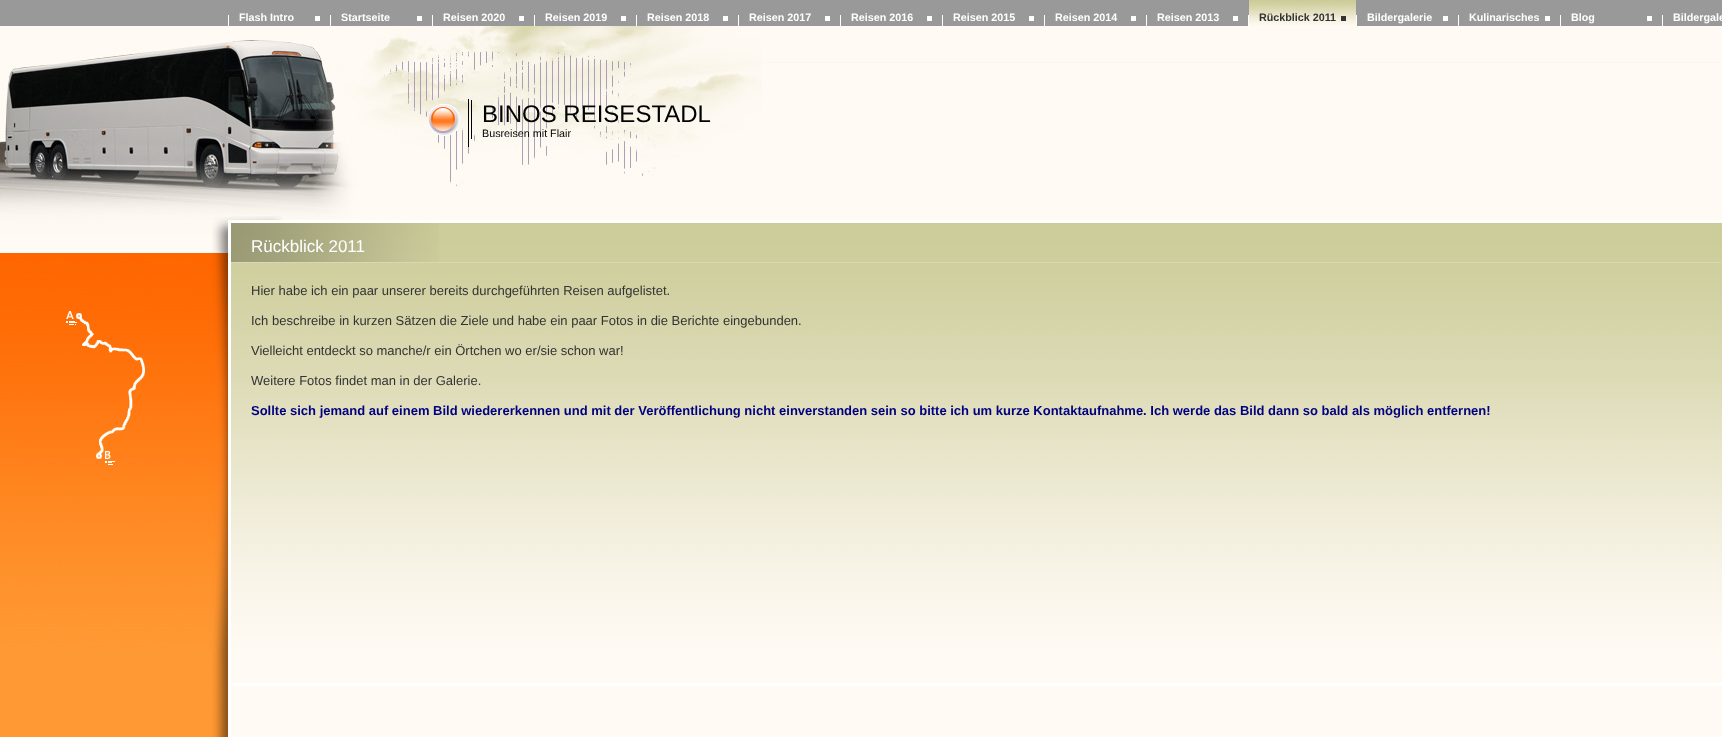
async function draw(canvas) {
  canvas.width = 1722;
  canvas.height = 737;
  const ctx = canvas.getContext('2d');
  ctx.miterLimit = 4;
  ctx.fontKerning = 'normal';
  function label(s, x, y, font, color) {
    ctx.font = font;
    ctx.fillStyle = color;
    ctx.fillText(s, x, y);
  }
  function rect(x, y, w, h, color) {
    ctx.fillStyle = color;
    ctx.fillRect(x, y, w, h);
  }
  async function image(src, x, y, w, h) {
    const img = new Image();
    img.src = src;
    await img.decode();
    ctx.drawImage(img, x, y, w, h);
  }

  rect(0, 0, 1722, 737, '#999');
  rect(228, 15, 1, 11, '#fff');
  label('Flash Intro', 239, 21, 'bold 10.75px Liberation Sans', '#fff');
  rect(315, 16, 5, 5, '#fff');
  rect(330, 15, 1, 11, '#fff');
  label('Startseite', 341, 21, 'bold 10.75px Liberation Sans', '#fff');
  rect(417, 16, 5, 5, '#fff');
  rect(432, 15, 1, 11, '#fff');
  label('Reisen 2020', 443, 21, 'bold 10.75px Liberation Sans', '#fff');
  rect(519, 16, 5, 5, '#fff');
  rect(534, 15, 1, 11, '#fff');
  label('Reisen 2019', 545, 21, 'bold 10.75px Liberation Sans', '#fff');
  rect(621, 16, 5, 5, '#fff');
  rect(636, 15, 1, 11, '#fff');
  label('Reisen 2018', 647, 21, 'bold 10.75px Liberation Sans', '#fff');
  rect(723, 16, 5, 5, '#fff');
  rect(738, 15, 1, 11, '#fff');
  label('Reisen 2017', 749, 21, 'bold 10.75px Liberation Sans', '#fff');
  rect(825, 16, 5, 5, '#fff');
  rect(840, 15, 1, 11, '#fff');
  label('Reisen 2016', 851, 21, 'bold 10.75px Liberation Sans', '#fff');
  rect(927, 16, 5, 5, '#fff');
  rect(942, 15, 1, 11, '#fff');
  label('Reisen 2015', 953, 21, 'bold 10.75px Liberation Sans', '#fff');
  rect(1029, 16, 5, 5, '#fff');
  rect(1044, 15, 1, 11, '#fff');
  label('Reisen 2014', 1055, 21, 'bold 10.75px Liberation Sans', '#fff');
  rect(1131, 16, 5, 5, '#fff');
  rect(1146, 15, 1, 11, '#fff');
  label('Reisen 2013', 1157, 21, 'bold 10.75px Liberation Sans', '#fff');
  rect(1233, 16, 5, 5, '#fff');
  rect(1248, 15, 1, 11, '#fff');
  await image('assets/img1.png', 1249, 0, 91, 26);
  label('Rückblick 2011', 1259, 21, 'bold 10.75px Liberation Sans', '#333');
  await image('assets/img2.png', 1340, 0, 16, 26);
  rect(1341, 16, 5, 5, '#333');
  rect(1356, 15, 1, 11, '#fff');
  label('Bildergalerie', 1367, 21, 'bold 10.75px Liberation Sans', '#fff');
  rect(1443, 16, 5, 5, '#fff');
  rect(1458, 15, 1, 11, '#fff');
  label('Kulinarisches', 1469, 21, 'bold 10.75px Liberation Sans', '#fff');
  rect(1545, 16, 5, 5, '#fff');
  rect(1560, 15, 1, 11, '#fff');
  label('Blog', 1571, 21, 'bold 10.75px Liberation Sans', '#fff');
  rect(1647, 16, 5, 5, '#fff');
  rect(1662, 15, 1, 11, '#fff');
  label('Bildergale', 1673, 21, 'bold 10.75px Liberation Sans', '#fff');
  rect(762, 26, 960, 194, '#fffaf3');
  rect(762, 62, 960, 1, '#fcf7ee');
  await image('assets/img3.png', 0, 26, 762, 227);
  rect(471, 100, 1, 39, '#000');
  await image('assets/img4.png', 429, 104, 31, 32);
  label('BINOS REISESTADL', 482, 122, '24px Liberation Sans', '#000');
  label('Busreisen mit Flair', 482, 137, '10.75px Liberation Sans', '#000');
  await image('assets/img5.png', 212, 217, 19, 36);
  rect(0, 653, 212, 84, '#f93');
  await image('assets/img6.png', 212, 653, 19, 84);
  await image('assets/img7.png', 0, 253, 231, 400);
  await image('assets/img8.png', 66, 311, 79, 154);
  rect(231, 220, 1491, 3, '#fff');
  await image('assets/img9.png', 231, 216, 51, 4);
  rect(231, 686, 1491, 51, '#fffaf3');
  await image('assets/img10.png', 439, 223, 1283, 39);
  rect(231, 262, 1491, 1, '#d8d9b1');
  await image('assets/img11.png', 231, 223, 208, 39);
  label('Rückblick 2011', 251, 252, '17px Liberation Sans', '#fff');
  await image('assets/img12.png', 231, 263, 1491, 423);
  label('Hier habe ich ein paar unserer bereits durchgeführten Reisen aufgelistet.', 251, 295, '13px Liberation Sans', '#333');
  label('Ich beschreibe in kurzen Sätzen die Ziele und habe ein paar Fotos in die Berichte eingebunden.', 251, 325, '13px Liberation Sans', '#333');
  label('Vielleicht entdeckt so manche/r ein Örtchen wo er/sie schon war!', 251, 355, '13px Liberation Sans', '#333');
  label('Weitere Fotos findet man in der Galerie.', 251, 385, '13px Liberation Sans', '#333');
  label('Sollte sich jemand auf einem Bild wiedererkennen und mit der Veröffentlichung nicht einverstanden sein so bitte ich um kurze Kontaktaufnahme. Ich werde das Bild dann so bald als möglich entfernen!', 251, 415, 'bold 13px Liberation Sans', '#000080');
}

draw(document.querySelector('canvas'));
